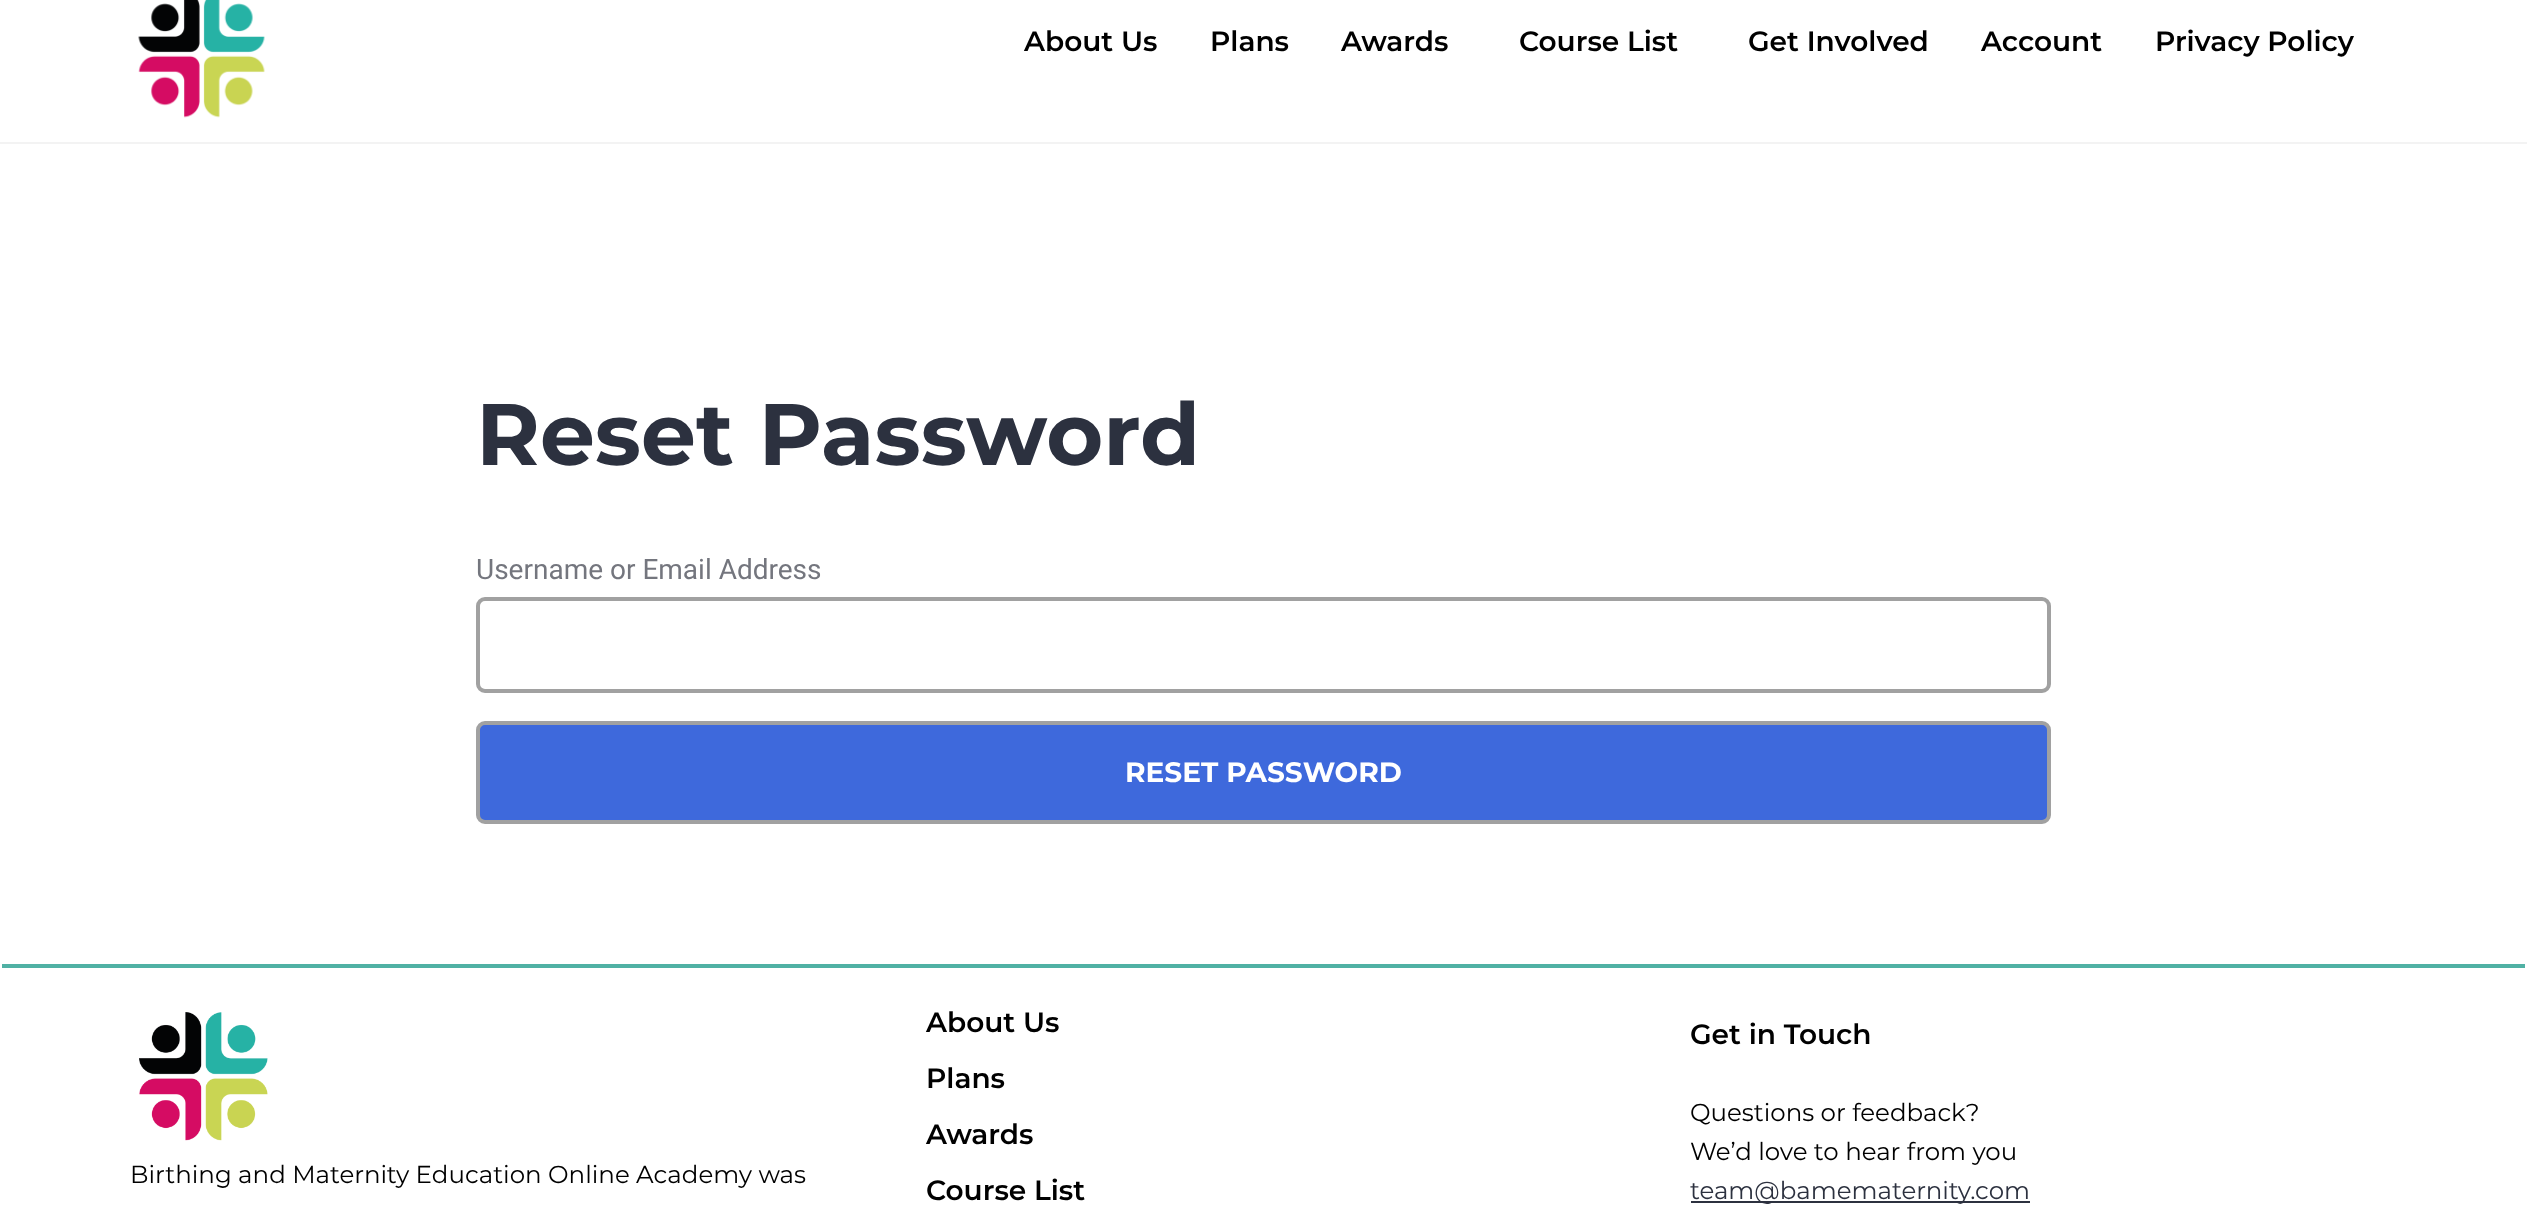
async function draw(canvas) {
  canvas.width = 2527;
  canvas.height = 1205;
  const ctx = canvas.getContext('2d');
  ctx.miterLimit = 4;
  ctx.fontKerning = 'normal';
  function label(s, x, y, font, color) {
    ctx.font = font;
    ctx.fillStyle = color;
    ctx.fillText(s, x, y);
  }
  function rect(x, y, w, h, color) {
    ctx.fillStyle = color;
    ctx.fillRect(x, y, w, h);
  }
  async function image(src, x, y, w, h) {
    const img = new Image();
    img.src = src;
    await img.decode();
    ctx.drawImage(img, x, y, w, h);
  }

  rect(0, 0, 2527, 1205, '#fff');
  rect(0, 142, 2527, 2, '#f3f3f3');
  await image('assets/img1.png', 138, 0, 127, 118);
  label('About Us', 1024, 51, '600 28px Montserrat', '#000');
  label('Plans', 1210, 51, '600 28px Montserrat', '#000');
  label('Awards', 1341, 51, '600 28px Montserrat', '#000');
  label('Course List', 1519, 51, '600 28px Montserrat', '#000');
  label('Get Involved', 1748, 51, '600 28px Montserrat', '#000');
  label('Account', 1981, 51, '600 28px Montserrat', '#000');
  label('Privacy Policy', 2155, 51, '600 28px Montserrat', '#000');
  label('Reset Password', 476, 465, 'bold 87px Montserrat', '#2c313f');
  label('Username or Email Address', 476, 579, '28px Roboto', '#74767e');
  ctx.beginPath();
  ctx.roundRect(478, 599, 1571, 92, 7);
  ctx.strokeStyle = '#a1a1a1';
  ctx.lineWidth = 4;
  ctx.stroke();
  ctx.fillStyle = '#3e69dc';
  ctx.beginPath();
  ctx.roundRect(478, 723, 1571, 99, 7);
  ctx.fill();
  ctx.stroke();
  label('RESET PASSWORD', 1125, 782, 'bold 28px Montserrat', '#fff');
  rect(2, 964, 2523, 4, '#50b1a4');
  await image('assets/img2.png', 139, 1012, 129, 129);
  label('Birthing and Maternity Education Online Academy was', 130, 1183, '24.5px Montserrat', '#000');
  label('About Us', 926, 1032, '600 28px Montserrat', '#000');
  label('Plans', 926, 1088, '600 28px Montserrat', '#000');
  label('Awards', 926, 1144, '600 28px Montserrat', '#000');
  label('Course List', 926, 1200, '600 28px Montserrat', '#000');
  label('Get in Touch', 1690, 1044, '600 28px Montserrat', '#000');
  label('Questions or feedback?', 1690, 1121, '24.5px Montserrat', '#000');
  label('We’d love to hear from you', 1690, 1160, '24.5px Montserrat', '#000');
  rect(1691, 1201, 339, 2, '#2c313f');
  label('team@bamematernity.com', 1690, 1199, '24.5px Montserrat', '#2c313f');
}

draw(document.querySelector('canvas'));
